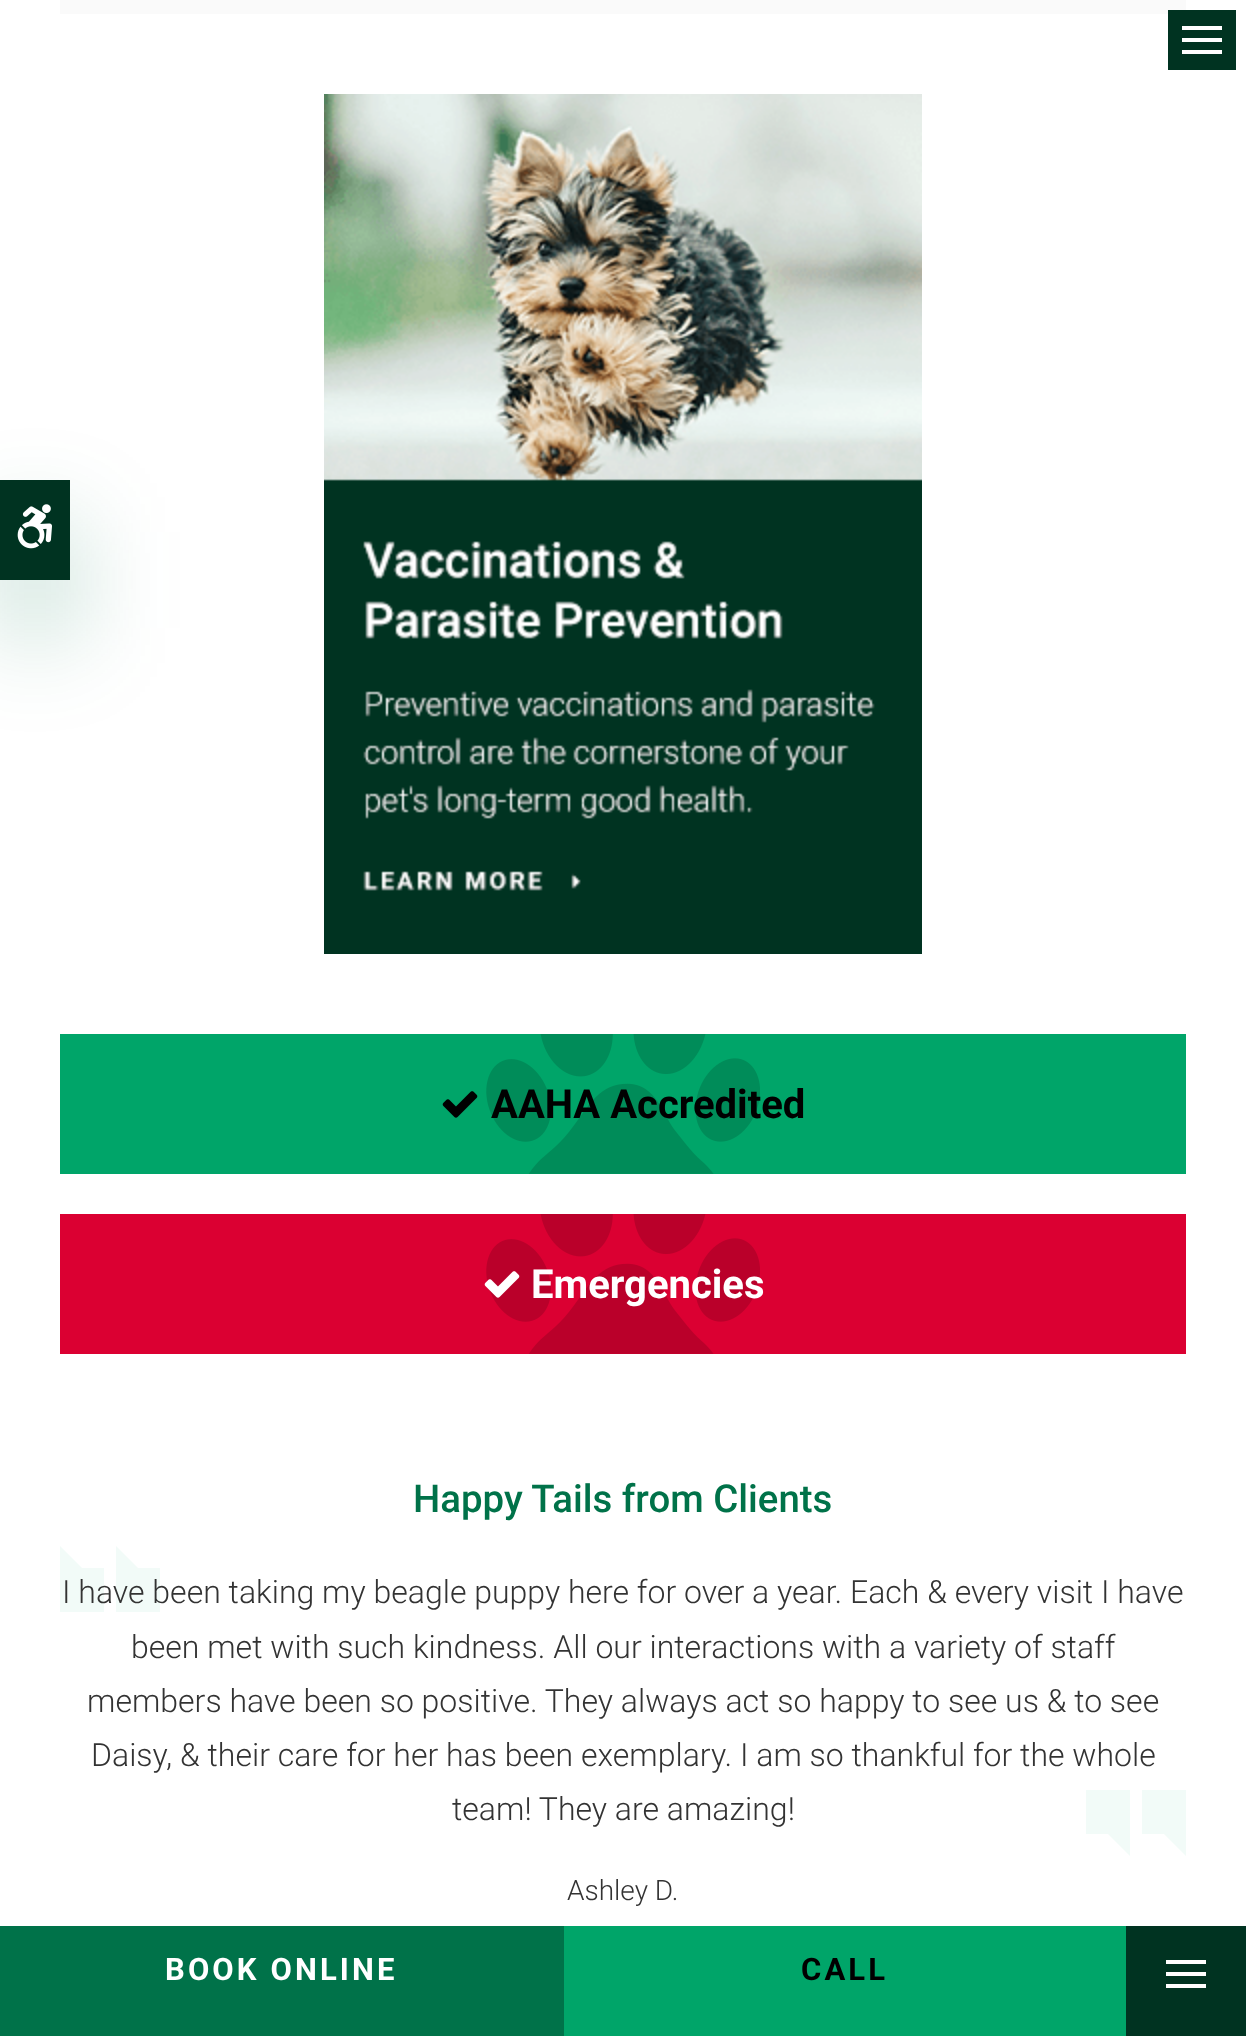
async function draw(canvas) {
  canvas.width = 1246;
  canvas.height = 2036;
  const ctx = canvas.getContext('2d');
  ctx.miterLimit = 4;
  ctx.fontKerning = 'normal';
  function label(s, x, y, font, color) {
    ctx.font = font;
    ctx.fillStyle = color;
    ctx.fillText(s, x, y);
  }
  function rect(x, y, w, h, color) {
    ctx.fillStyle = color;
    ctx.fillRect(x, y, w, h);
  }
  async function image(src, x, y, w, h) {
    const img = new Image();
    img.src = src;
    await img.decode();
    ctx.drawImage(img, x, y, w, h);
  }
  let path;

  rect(0, 0, 1246, 2036, '#fff');
  rect(60, 0, 1126, 14, '#fafafa');
  rect(1168, 10, 68, 60, '#003321');
  rect(1182, 26, 40, 4, '#fff');
  rect(1182, 38, 40, 4, '#fff');
  rect(1182, 50, 40, 4, '#fff');
  ctx.fillStyle = '#0072494d';
  ctx.filter = 'blur(50px)';
  ctx.beginPath();
  ctx.rect(0, 530, 70, 100);
  ctx.fill();
  ctx.filter = 'none';
  rect(0, 480, 70, 100, '#003321');
  await image('assets/img1.png', 17, 504, 35, 45);
  await image('assets/img2.png', 324, 94, 598, 860);
  rect(60, 1034, 1126, 140, '#00a569');
  await image('assets/img3.png', 486, 1034, 274, 140);
  await image('assets/img4.png', 442, 1091, 36, 27);
  label('AAHA Accredited', 491, 1118, 'bold 40px Roboto', '#000');
  rect(60, 1214, 1126, 140, '#db0032');
  await image('assets/img5.png', 486, 1214, 274, 140);
  await image('assets/img6.png', 484, 1271, 36, 27);
  label('Emergencies', 531, 1298, 'bold 40px Roboto', '#fff');
  label('Happy Tails from Clients', 413, 1512, '500 38.4px Roboto', '#007249');
  ctx.save();
  ctx.beginPath();
  ctx.rect(60, 1546, 100, 66);
  ctx.clip();
  ctx.fillStyle = '#f2fbf8';
  path = new Path2D('M60 1613V1546L82 1568H104V1613Z');
  ctx.fill(path);
  path = new Path2D('M116 1613V1546L138 1568H160V1613Z');
  ctx.fill(path);
  ctx.restore();
  label('I have been taking my beagle puppy here for over a year. Each & every visit I have', 62, 1603, '300 32px Roboto', '#333');
  label('been met with such kindness. All our interactions with a variety of staff', 131, 1658, '300 32px Roboto', '#333');
  label('members have been so positive. They always act so happy to see us & to see', 87, 1712, '300 32px Roboto', '#333');
  label('Daisy, & their care for her has been exemplary. I am so thankful for the whole', 91, 1766, '300 32px Roboto', '#333');
  label('team! They are amazing!', 452, 1820, '300 32px Roboto', '#333');
  ctx.save();
  ctx.beginPath();
  ctx.rect(1086, 1790, 100, 66);
  ctx.clip();
  ctx.fillStyle = '#f2fbf8';
  path = new Path2D('M1186 1789V1856L1164 1834H1142V1789Z');
  ctx.fill(path);
  path = new Path2D('M1130 1789V1856L1108 1834H1086V1789Z');
  ctx.fill(path);
  ctx.restore();
  label('Ashley D.', 567, 1900, '300 28px Roboto', '#333');
  rect(0, 1926, 564, 110, '#007249');
  ctx.letterSpacing = '3.1px';
  label('BOOK ONLINE', 165, 1980, 'bold 31px Roboto', '#fff');
  rect(564, 1926, 562, 110, '#00a569');
  label('CALL', 801, 1980, 'bold 31px Roboto', '#000');
  rect(1126, 1926, 120, 110, '#003321');
  rect(1166, 1960, 40, 4, '#fff');
  rect(1166, 1972, 40, 4, '#fff');
  rect(1166, 1984, 40, 4, '#fff');
}

draw(document.querySelector('canvas'));
